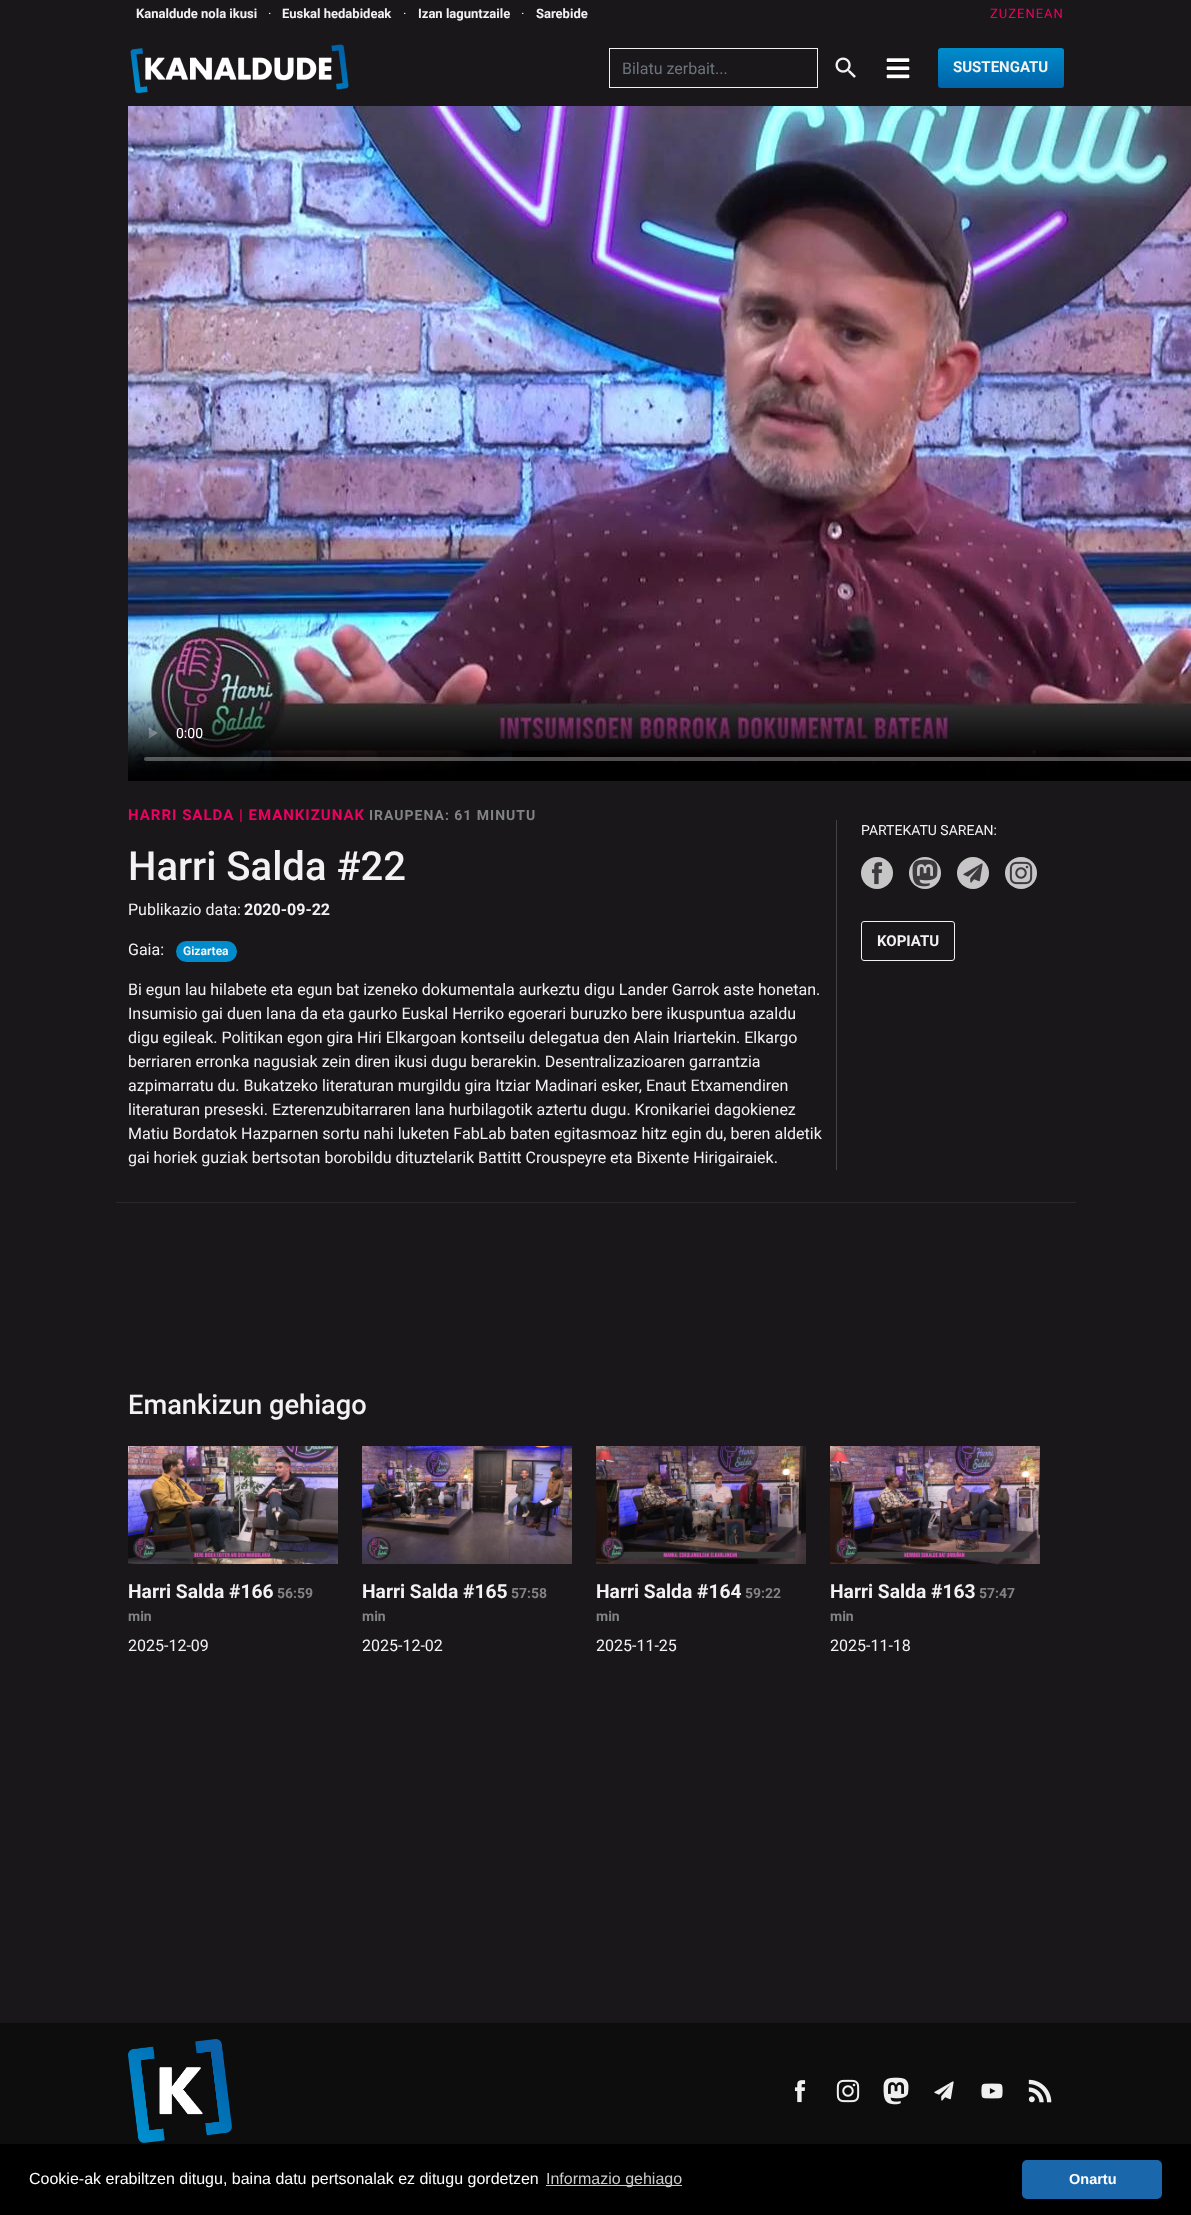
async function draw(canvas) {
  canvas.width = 1191;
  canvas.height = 2215;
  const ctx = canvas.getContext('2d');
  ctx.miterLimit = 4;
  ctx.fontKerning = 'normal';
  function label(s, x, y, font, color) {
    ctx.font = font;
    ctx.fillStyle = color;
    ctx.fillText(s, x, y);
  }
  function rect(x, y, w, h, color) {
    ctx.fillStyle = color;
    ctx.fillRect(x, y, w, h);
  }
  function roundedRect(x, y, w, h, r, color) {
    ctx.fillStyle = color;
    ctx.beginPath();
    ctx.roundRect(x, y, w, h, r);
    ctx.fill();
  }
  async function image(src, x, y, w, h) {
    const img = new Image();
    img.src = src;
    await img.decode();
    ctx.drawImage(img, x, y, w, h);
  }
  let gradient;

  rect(0, 0, 1191, 2215, '#1a171b');
  label('Kanaldude nola ikusi', 136, 18, 'bold 13px Roboto', '#f2f2f2');
  label('·', 268, 18, '13px Roboto', '#f2f2f2');
  label('Euskal hedabideak', 282, 18, 'bold 13px Roboto', '#f2f2f2');
  label('·', 403, 18, '13px Roboto', '#f2f2f2');
  label('Izan laguntzaile', 418, 18, 'bold 13px Roboto', '#f2f2f2');
  label('·', 521, 18, '13px Roboto', '#f2f2f2');
  label('Sarebide', 536, 18, 'bold 13px Roboto', '#f2f2f2');
  ctx.letterSpacing = '1px';
  label('ZUZENEAN', 990, 18, '13px Roboto', '#ec0162');
  await image('assets/img1.png', 130, 44, 219, 50);
  ctx.strokeStyle = '#f2f2f2';
  ctx.strokeRect(609.5, 48.5, 208, 39);
  ctx.letterSpacing = '0px';
  label('Bilatu zerbait...', 622, 74, '16px Roboto', '#6c757d');
  await image('assets/img2.png', 835, 57, 21, 21);
  await image('assets/img3.png', 886, 58, 24, 21);
  gradient = ctx.createLinearGradient(1001, 48, 1001, 88);
  gradient.addColorStop(0, '#008ccc');
  gradient.addColorStop(0.52, '#0076b9');
  gradient.addColorStop(1, '#0062a8');
  ctx.fillStyle = gradient;
  ctx.beginPath();
  ctx.roundRect(938, 48, 126, 40, 3);
  ctx.fill();
  label('SUSTENGATU', 953, 72, 'bold 15px Roboto', '#f2f2f2');
  await image('assets/img4.png', 128, 106, 1063, 675);
  ctx.letterSpacing = '1px';
  label('HARRI SALDA | EMANKIZUNAK', 128, 820, 'bold 15px Roboto', '#ec0162');
  label('IRAUPENA: 61 MINUTU', 369, 820, 'bold 14px Roboto', '#818385');
  ctx.letterSpacing = '0px';
  label('Harri Salda #22', 128, 880, '500 40px Roboto', '#f2f2f2');
  label('Publikazio data:', 128, 915, '16px Roboto', '#f2f2f2');
  label('2020-09-22', 244, 915, 'bold 16px Roboto', '#f2f2f2');
  label('Gaia:', 128, 955, '16px Roboto', '#f2f2f2');
  roundedRect(176, 941, 61, 21, 10.5, '#008ccc');
  label('Gizartea', 183, 955, 'bold 12px Roboto', '#f2f2f2');
  label('Bi egun lau hilabete eta egun bat izeneko dokumentala aurkeztu digu Lander Garrok aste honetan.', 128, 995, '16px Roboto', '#f2f2f2');
  label('Insumisio gai duen lana da eta gaurko Euskal Herriko egoerari buruzko bere ikuspuntua azaldu', 128, 1019, '16px Roboto', '#f2f2f2');
  label('digu egileak. Politikan egon gira Hiri Elkargoan kontseilu delegatua den Alain Iriartekin. Elkargo', 128, 1043, '16px Roboto', '#f2f2f2');
  label('berriaren erronka nagusiak zein diren ikusi dugu berarekin. Desentralizazioaren garrantzia', 128, 1067, '16px Roboto', '#f2f2f2');
  label('azpimarratu du. Bukatzeko literaturan murgildu gira Itziar Madinari esker, Enaut Etxamendiren', 128, 1091, '16px Roboto', '#f2f2f2');
  label('literaturan preseski. Ezterenzubitarraren lana hurbilagotik aztertu dugu. Kronikariei dagokienez', 128, 1115, '16px Roboto', '#f2f2f2');
  label('Matiu Bordatok Hazparnen sortu nahi luketen FabLab baten egitasmoaz hitz egin du, beren aldetik', 128, 1139, '16px Roboto', '#f2f2f2');
  label('gai horiek guziak bertsotan borobildu dituztelarik Battitt Crouspeyre eta Bixente Hirigairaiek.', 128, 1163, '16px Roboto', '#f2f2f2');
  rect(836, 820, 1, 350, '#454245');
  label('PARTEKATU SAREAN:', 861, 835, '14px Roboto', '#f2f2f2');
  ctx.fillStyle = '#c7c6c7';
  ctx.beginPath();
  ctx.arc(877, 873, 16, 0, 2 * Math.PI);
  ctx.fill();
  await image('assets/img5.png', 871, 862, 12, 23);
  ctx.beginPath();
  ctx.arc(925, 873, 16, 0, 2 * Math.PI);
  ctx.fill();
  await image('assets/img6.png', 912, 859, 26, 28);
  ctx.beginPath();
  ctx.arc(973, 873, 16, 0, 2 * Math.PI);
  ctx.fill();
  await image('assets/img7.png', 963, 863, 20, 20);
  ctx.beginPath();
  ctx.arc(1021, 873, 16, 0, 2 * Math.PI);
  ctx.fill();
  await image('assets/img8.png', 1009, 861, 24, 24);
  ctx.beginPath();
  ctx.roundRect(861.5, 921.5, 93, 39, 2.5);
  ctx.stroke();
  label('KOPIATU', 877, 946, 'bold 15px Roboto', '#f2f2f2');
  rect(116, 1202, 960, 1, '#2b282c');
  label('Emankizun gehiago', 128, 1414, '500 27.25px Roboto', '#f2f2f2');
  await image('assets/img9.png', 128, 1446, 210, 118);
  label('Harri Salda #166', 128, 1598, 'bold 19.25px Roboto', '#f2f2f2');
  label('56:59', 277, 1598, 'bold 14px Roboto', '#818385');
  label('min', 128, 1621, 'bold 14px Roboto', '#818385');
  label('2025-12-09', 128, 1651, '16px Roboto', '#f2f2f2');
  await image('assets/img10.png', 362, 1446, 210, 118);
  label('Harri Salda #165', 362, 1598, 'bold 19.25px Roboto', '#f2f2f2');
  label('57:58', 511, 1598, 'bold 14px Roboto', '#818385');
  label('min', 362, 1621, 'bold 14px Roboto', '#818385');
  label('2025-12-02', 362, 1651, '16px Roboto', '#f2f2f2');
  await image('assets/img11.png', 596, 1446, 210, 118);
  label('Harri Salda #164', 596, 1598, 'bold 19.25px Roboto', '#f2f2f2');
  label('59:22', 745, 1598, 'bold 14px Roboto', '#818385');
  label('min', 596, 1621, 'bold 14px Roboto', '#818385');
  label('2025-11-25', 596, 1651, '16px Roboto', '#f2f2f2');
  await image('assets/img12.png', 830, 1446, 210, 118);
  label('Harri Salda #163', 830, 1598, 'bold 19.25px Roboto', '#f2f2f2');
  label('57:47', 979, 1598, 'bold 14px Roboto', '#818385');
  label('min', 830, 1621, 'bold 14px Roboto', '#818385');
  label('2025-11-18', 830, 1651, '16px Roboto', '#f2f2f2');
  rect(0, 2023, 1191, 121, '#0d0d0d');
  await image('assets/img13.png', 128, 2039, 104, 104);
  await image('assets/img14.png', 794, 2080, 12, 23);
  await image('assets/img15.png', 836, 2079, 24, 24);
  await image('assets/img16.png', 883, 2077, 26, 28);
  await image('assets/img17.png', 934, 2081, 20, 20);
  await image('assets/img18.png', 981, 2083, 22, 16);
  await image('assets/img19.png', 1028, 2079, 24, 24);
  rect(0, 2144, 1191, 71, '#000');
  label('Cookie-ak erabiltzen ditugu, baina datu pertsonalak ez ditugu gordetzen', 29, 2184, '16px Liberation Sans', '#fff');
  rect(546, 2185, 136, 1, '#ccc');
  label('Informazio gehiago', 546, 2184, '16px Liberation Sans', '#ccc');
  roundedRect(1022, 2160, 140, 39, 5, '#1b67ab');
  label('Onartu', 1069, 2184, 'bold 14.5px Liberation Sans', '#fff');
}

draw(document.querySelector('canvas'));
